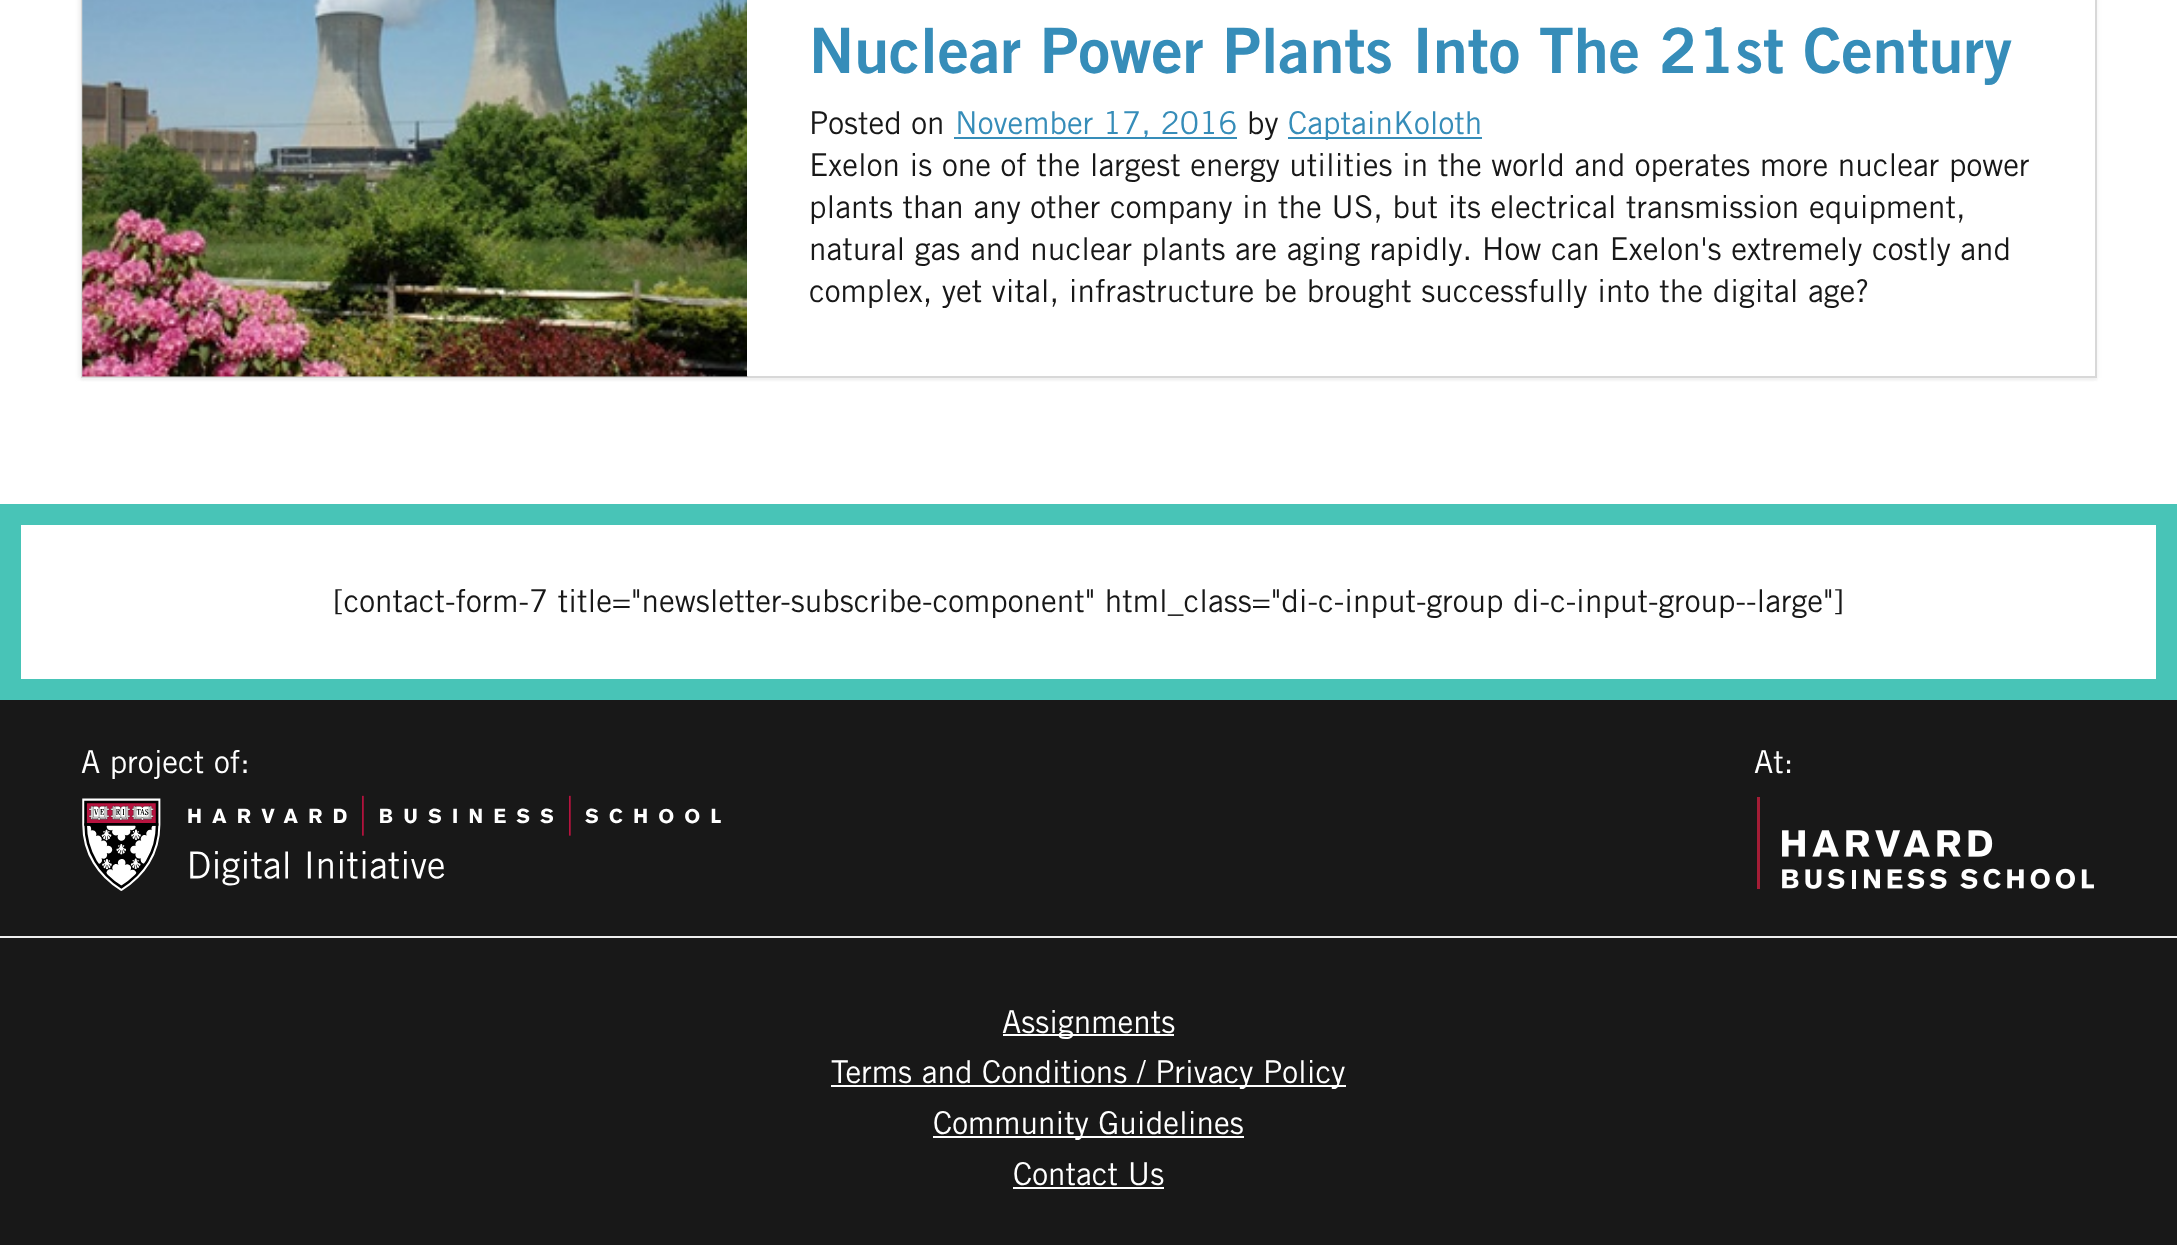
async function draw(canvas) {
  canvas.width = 2177;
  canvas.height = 1245;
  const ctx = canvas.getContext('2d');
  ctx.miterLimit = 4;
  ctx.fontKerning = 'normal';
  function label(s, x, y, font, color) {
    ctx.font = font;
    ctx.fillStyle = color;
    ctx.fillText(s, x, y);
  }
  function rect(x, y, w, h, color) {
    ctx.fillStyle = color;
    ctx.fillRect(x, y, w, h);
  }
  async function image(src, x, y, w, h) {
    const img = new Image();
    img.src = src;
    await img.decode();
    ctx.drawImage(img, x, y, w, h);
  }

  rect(0, 0, 2177, 1245, '#181818');
  rect(0, 0, 2177, 504, '#fff');
  ctx.fillStyle = '#eee';
  ctx.filter = 'blur(1px)';
  ctx.beginPath();
  ctx.rect(81, -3, 2016, 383);
  ctx.fill();
  ctx.filter = 'none';
  ctx.fillStyle = '#fafafa';
  ctx.filter = 'blur(2px)';
  ctx.beginPath();
  ctx.rect(82, -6, 2016, 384);
  ctx.fill();
  ctx.filter = 'none';
  ctx.fillStyle = '#eee';
  ctx.filter = 'blur(2px)';
  ctx.beginPath();
  ctx.rect(79, -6, 2016, 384);
  ctx.fill();
  ctx.filter = 'none';
  ctx.strokeStyle = '#d8d8d8';
  ctx.lineWidth = 2;
  ctx.strokeRect(82, -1, 2014, 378);
  await image('assets/img1.png', 82, 0, 666, 377);
  rect(747, 0, 1348, 376, '#fff');
  label('Nuclear Power Plants Into The 21st Century', 809, 73, 'bold 62.6px Trade Gothic', '#368db9');
  label('Posted on', 809, 134, '31.5px Trade Gothic', '#181818');
  rect(954, 137, 283, 2, '#368db9');
  label('November 17, 2016', 955, 134, '31.5px Trade Gothic', '#368db9');
  label('by', 1247, 134, '31.5px Trade Gothic', '#181818');
  rect(1288, 137, 194, 2, '#368db9');
  label('CaptainKoloth', 1288, 134, '31.5px Trade Gothic', '#368db9');
  label('Exelon is one of the largest energy utilities in the world and operates more nuclear power', 809, 176, '31.5px Trade Gothic', '#181818');
  label('plants than any other company in the US, but its electrical transmission equipment,', 809, 218, '31.5px Trade Gothic', '#181818');
  label('natural gas and nuclear plants are aging rapidly. How can Exelon\'s extremely costly and', 809, 260, '31.5px Trade Gothic', '#181818');
  label('complex, yet vital, infrastructure be brought successfully into the digital age?', 809, 302, '31.5px Trade Gothic', '#181818');
  ctx.fillStyle = '#fff';
  ctx.beginPath();
  ctx.rect(10.5, 514.5, 2156, 175);
  ctx.fill();
  ctx.strokeStyle = '#48c4b7';
  ctx.lineWidth = 21;
  ctx.stroke();
  label('[contact-form-7 title="newsletter-subscribe-component" html_class="di-c-input-group di-c-input-group--large"]', 333, 612, '31.5px Trade Gothic', '#181818');
  rect(0, 936, 2177, 2, '#eee');
  label('A project of:', 81, 773, '31.5px Trade Gothic', '#fff');
  await image('assets/img2.png', 82, 795, 639, 96);
  label('At:', 1754, 773, '31.5px Trade Gothic', '#fff');
  await image('assets/img3.png', 1757, 797, 337, 92);
  rect(1003, 1034, 171, 2, '#fff');
  label('Assignments', 1002, 1033, '31.5px Trade Gothic', '#fff');
  rect(831, 1085, 515, 2, '#fff');
  label('Terms and Conditions / Privacy Policy', 831, 1083, '31.5px Trade Gothic', '#fff');
  rect(933, 1136, 311, 2, '#fff');
  label('Community Guidelines', 933, 1134, '31.5px Trade Gothic', '#fff');
  label('Contact Us', 1013, 1185, '31.5px Trade Gothic', '#fff');
  rect(1013, 1187, 151, 2, '#fff');
}

draw(document.querySelector('canvas'));
